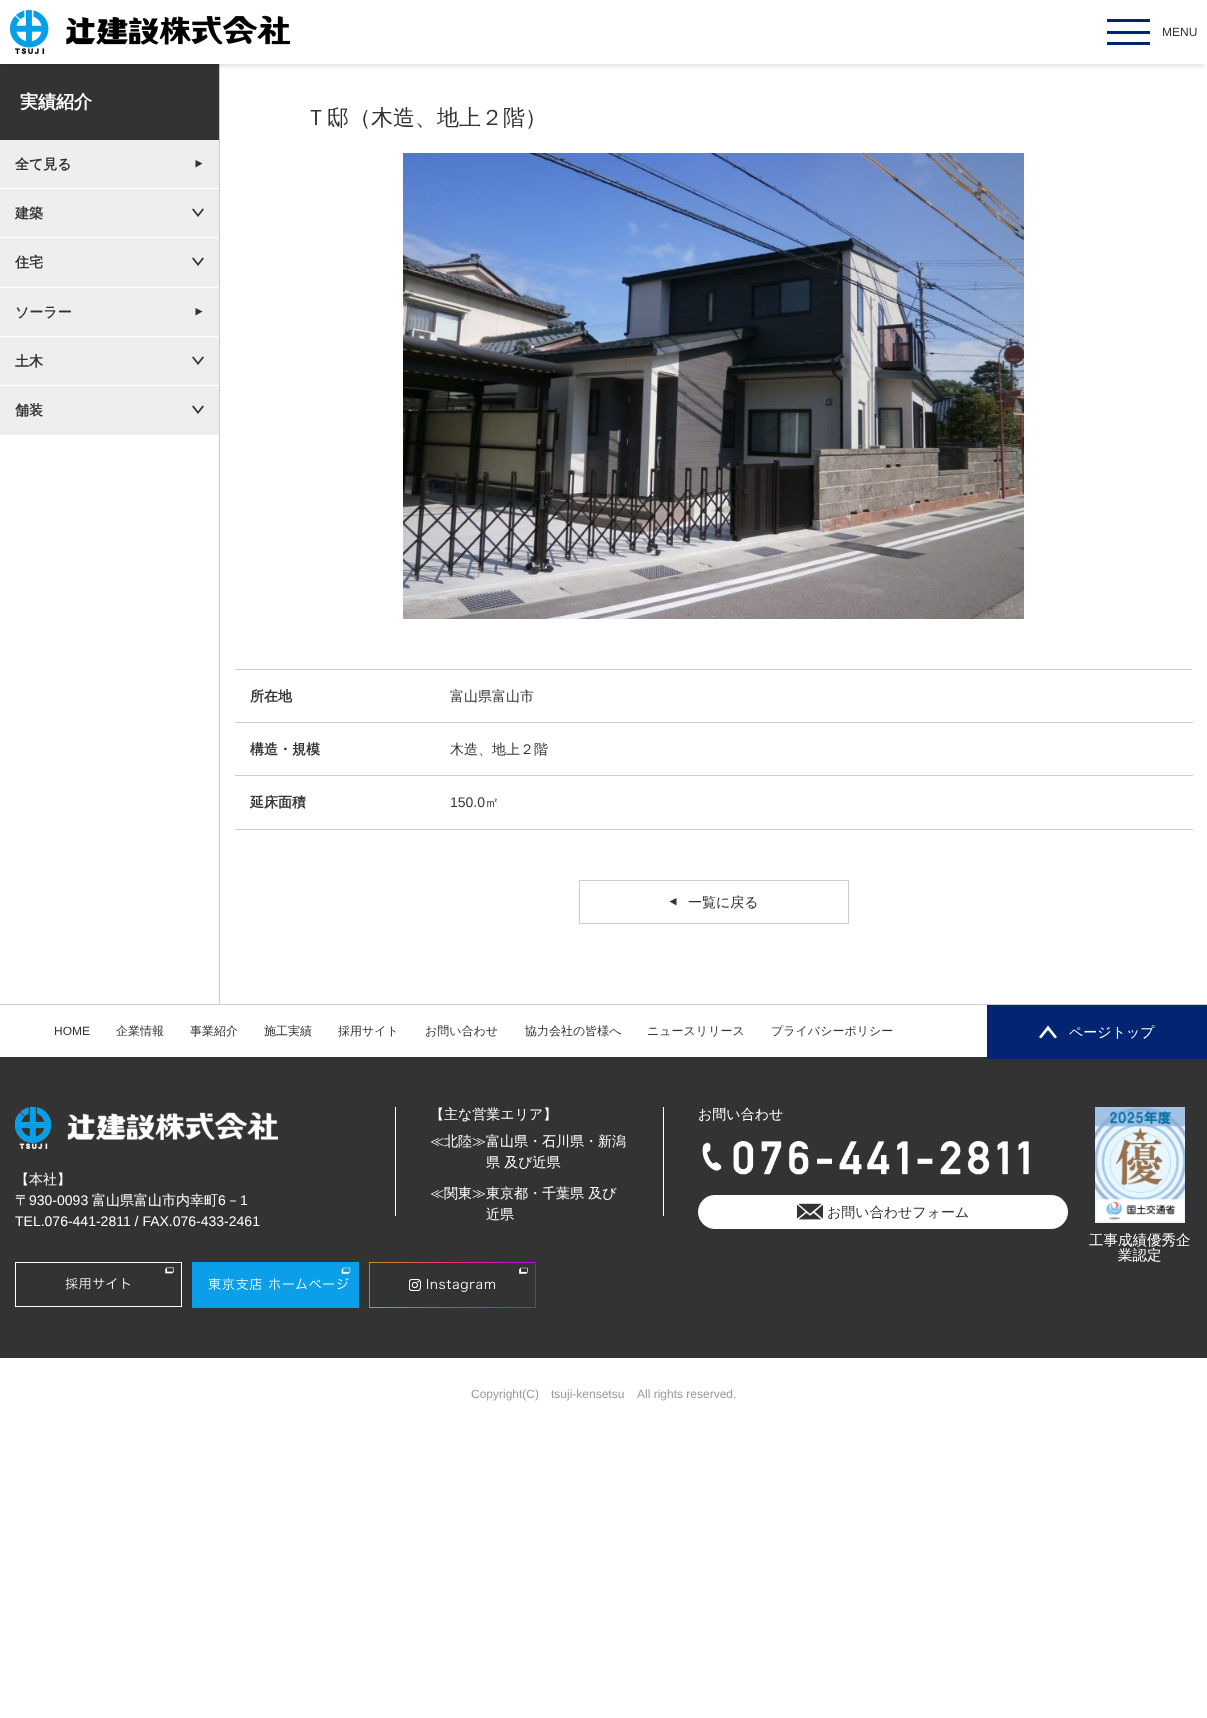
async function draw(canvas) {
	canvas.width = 1207;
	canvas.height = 1718;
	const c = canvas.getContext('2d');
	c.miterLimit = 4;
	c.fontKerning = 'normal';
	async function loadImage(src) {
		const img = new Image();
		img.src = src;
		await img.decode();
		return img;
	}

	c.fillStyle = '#fff';
	c.fillRect(0, 0, 1207, 1718);
	c.fillStyle = '#333';
	c.fillRect(0, 64, 219, 76);
	c.fillStyle = '#ccc';
	c.fillRect(219, 64, 1, 940);
	c.save();
	c.beginPath();
	c.rect(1, 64, 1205, 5);
	c.clip();
	c.fillStyle = '#0000001a';
	c.filter = 'blur(2px)';
	c.beginPath();
	c.rect(3, 9, 1201, 58);
	c.fill();
	c.filter = 'none';
	c.restore();
	c.drawImage(await loadImage('img1.png'), 10, 10, 280, 44);
	for (const [x, y, w, h, color] of [
		[1107, 19, 43, 3, '#012572'],
		[1107, 31, 43, 3, '#012572'],
		[1107, 42, 43, 3, '#012572'],
	]) {
		c.fillStyle = color;
		c.fillRect(x, y, w, h);
	}
	c.font = '12px Liberation Sans';
	c.fillStyle = '#333';
	c.fillText('MENU', 1162, 36);
	c.font = 'bold 18px WenQuanYi Zen Hei';
	c.fillStyle = '#fff';
	c.fillText('実績紹介', 20, 108);
	c.fillStyle = '#eee';
	c.fillRect(0, 140, 219, 48);
	c.font = 'bold 14px WenQuanYi Zen Hei';
	c.fillStyle = '#333';
	c.fillText('全て見る', 15, 169);
	c.beginPath();
	c.moveTo(202.5, 163.5);
	c.lineTo(195.5, 167.5);
	c.lineTo(195.5, 160);
	c.closePath();
	c.fill();
	c.fillStyle = '#eee';
	c.fillRect(0, 386, 219, 49);
	c.fillRect(0, 189, 219, 48);
	c.fillStyle = '#333';
	c.fillText('建築', 15, 218);
	c.drawImage(await loadImage('img2.png'), 192, 208, 12, 9);
	c.fillStyle = '#eee';
	c.fillRect(0, 238, 219, 49);
	c.fillStyle = '#333';
	c.fillText('住宅', 15, 267);
	c.drawImage(await loadImage('img2.png'), 192, 257, 12, 9);
	c.fillStyle = '#eee';
	c.fillRect(0, 288, 219, 48);
	c.fillStyle = '#333';
	c.fillText('ソーラー', 15, 317);
	c.beginPath();
	c.moveTo(202.5, 311.5);
	c.lineTo(195.5, 315.5);
	c.lineTo(195.5, 308);
	c.closePath();
	c.fill();
	c.fillStyle = '#eee';
	c.fillRect(0, 337, 219, 48);
	c.fillStyle = '#333';
	c.fillText('土木', 15, 366);
	c.drawImage(await loadImage('img2.png'), 192, 356, 12, 9);
	c.fillText('舗装', 15, 415);
	c.drawImage(await loadImage('img2.png'), 192, 405, 12, 9);
	c.font = '500 22px WenQuanYi Zen Hei';
	c.fillText('Ｔ邸（木造、地上２階）', 305, 125);
	c.drawImage(await loadImage('img3.png'), 403, 153, 621, 466);
	c.fillStyle = '#ccc';
	c.fillRect(235, 669, 957, 1);
	c.font = 'bold 14px WenQuanYi Zen Hei';
	c.fillStyle = '#333';
	c.fillText('所在地', 250, 701);
	c.fillStyle = '#ccc';
	c.fillRect(235, 722, 958, 1);
	c.font = '500 14px WenQuanYi Zen Hei';
	c.fillStyle = '#333';
	c.fillText('富山県富山市', 450, 701);
	c.font = 'bold 14px WenQuanYi Zen Hei';
	c.fillText('構造・規模', 250, 754);
	c.fillStyle = '#ccc';
	c.fillRect(235, 775, 958, 1);
	c.font = '500 14px WenQuanYi Zen Hei';
	c.fillStyle = '#333';
	c.fillText('木造、地上２階', 450, 754);
	c.font = 'bold 14px WenQuanYi Zen Hei';
	c.fillText('延床面積', 250, 807);
	c.fillStyle = '#ccc';
	c.fillRect(235, 829, 958, 1);
	c.font = '14px Liberation Sans';
	c.fillStyle = '#333';
	c.fillText('150.0', 450, 807);
	c.font = '500 14px WenQuanYi Zen Hei';
	c.fillText('㎡', 485, 807);
	c.strokeStyle = '#ccc';
	c.strokeRect(579.5, 880.5, 269, 43);
	c.beginPath();
	c.moveTo(669.5, 901.5);
	c.lineTo(676.5, 898);
	c.lineTo(676.5, 905.5);
	c.closePath();
	c.fill();
	c.fillText('一覧に戻る', 688, 907);
	c.fillStyle = '#ccc';
	c.fillRect(0, 1004, 1207, 1);
	c.font = '12px Liberation Sans';
	c.fillStyle = '#333';
	c.fillText('HOME', 54, 1035);
	c.font = '500 12px WenQuanYi Zen Hei';
	for (const [text, x, y] of [
		['企業情報', 116, 1035],
		['事業紹介', 190, 1035],
		['施工実績', 264, 1035],
		['採用サイト', 338, 1035],
		['お問い合わせ', 425, 1035],
		['協力会社の皆様へ', 525, 1035],
		['ニュースリリース', 647, 1035],
		['プライバシーポリシー', 771, 1035],
	]) {
		c.fillText(text, x, y);
	}
	c.fillRect(0, 1057, 1207, 301);
	c.fillStyle = '#012572';
	c.fillRect(987, 1005, 220, 54);
	c.fillStyle = '#fff';
	c.beginPath();
	c.moveTo(1048, 1025.5);
	c.lineTo(1039, 1037);
	c.lineTo(1041, 1038.5);
	c.lineTo(1048, 1030);
	c.lineTo(1055, 1038.5);
	c.lineTo(1057, 1037);
	c.closePath();
	c.fill();
	c.font = '500 14px WenQuanYi Zen Hei';
	c.fillText('ページトップ', 1069, 1037);
	c.drawImage(await loadImage('img4.png'), 15, 1107, 263, 42);
	c.fillText('【本社】', 15, 1184);
	c.fillText('〒', 15, 1205);
	c.font = '14px Liberation Sans';
	c.fillText('930-0093', 29, 1205);
	c.font = '500 14px WenQuanYi Zen Hei';
	c.fillText('富山県富山市内幸町', 92, 1205);
	c.font = '14px Liberation Sans';
	c.fillText('6', 218, 1205);
	c.font = '500 14px WenQuanYi Zen Hei';
	c.fillText('－', 226, 1205);
	c.font = '14px Liberation Sans';
	c.fillText('1', 240, 1205);
	c.fillText('TEL.076-441-2811 / FAX.076-433-2461', 15, 1226);
	c.fillRect(395, 1107, 1, 109);
	c.font = '500 14px WenQuanYi Zen Hei';
	for (const [text, x, y] of [
		['【主な営業エリア】', 430, 1119],
		['≪北陸≫富山県・石川県・新潟', 430, 1146],
		['県 及び近県', 486, 1167],
		['≪関東≫', 430, 1198],
		['東京都・千葉県 及び', 486, 1198],
		['近県', 486, 1219],
	]) {
		c.fillText(text, x, y);
	}
	c.fillRect(663, 1107, 1, 109);
	c.fillText('お問い合わせ', 698, 1119);
	c.drawImage(await loadImage('img5.png'), 702, 1142, 20, 29);
	c.drawImage(await loadImage('img6.png'), 733, 1141, 296, 34);
	c.beginPath();
	c.roundRect(698, 1195, 370, 34, 17);
	c.fill();
	c.drawImage(await loadImage('img7.png'), 797, 1203, 26, 17);
	c.fillStyle = '#333';
	c.fillText('お問い合わせフォーム', 827, 1217);
	c.drawImage(await loadImage('img8.png'), 1095, 1107, 90, 116);
	c.font = '500 14.5px WenQuanYi Zen Hei';
	c.fillStyle = '#fff';
	c.fillText('工事成績優秀企', 1089, 1245);
	c.fillText('業認定', 1118, 1260);
	c.drawImage(await loadImage('img9.png'), 15, 1262, 167, 45);
	c.drawImage(await loadImage('img10.png'), 192, 1262, 167, 46);
	c.drawImage(await loadImage('img11.png'), 369, 1262, 167, 46);
	c.font = '12px Liberation Sans';
	c.fillStyle = '#9a9a9a';
	for (const [text, x, y] of [
		['Copyright(C)', 471, 1398],
		['tsuji-kensetsu', 551, 1398],
		['All rights reserved.', 637, 1398],
	]) {
		c.fillText(text, x, y);
	}
}

draw(document.querySelector('canvas'));
